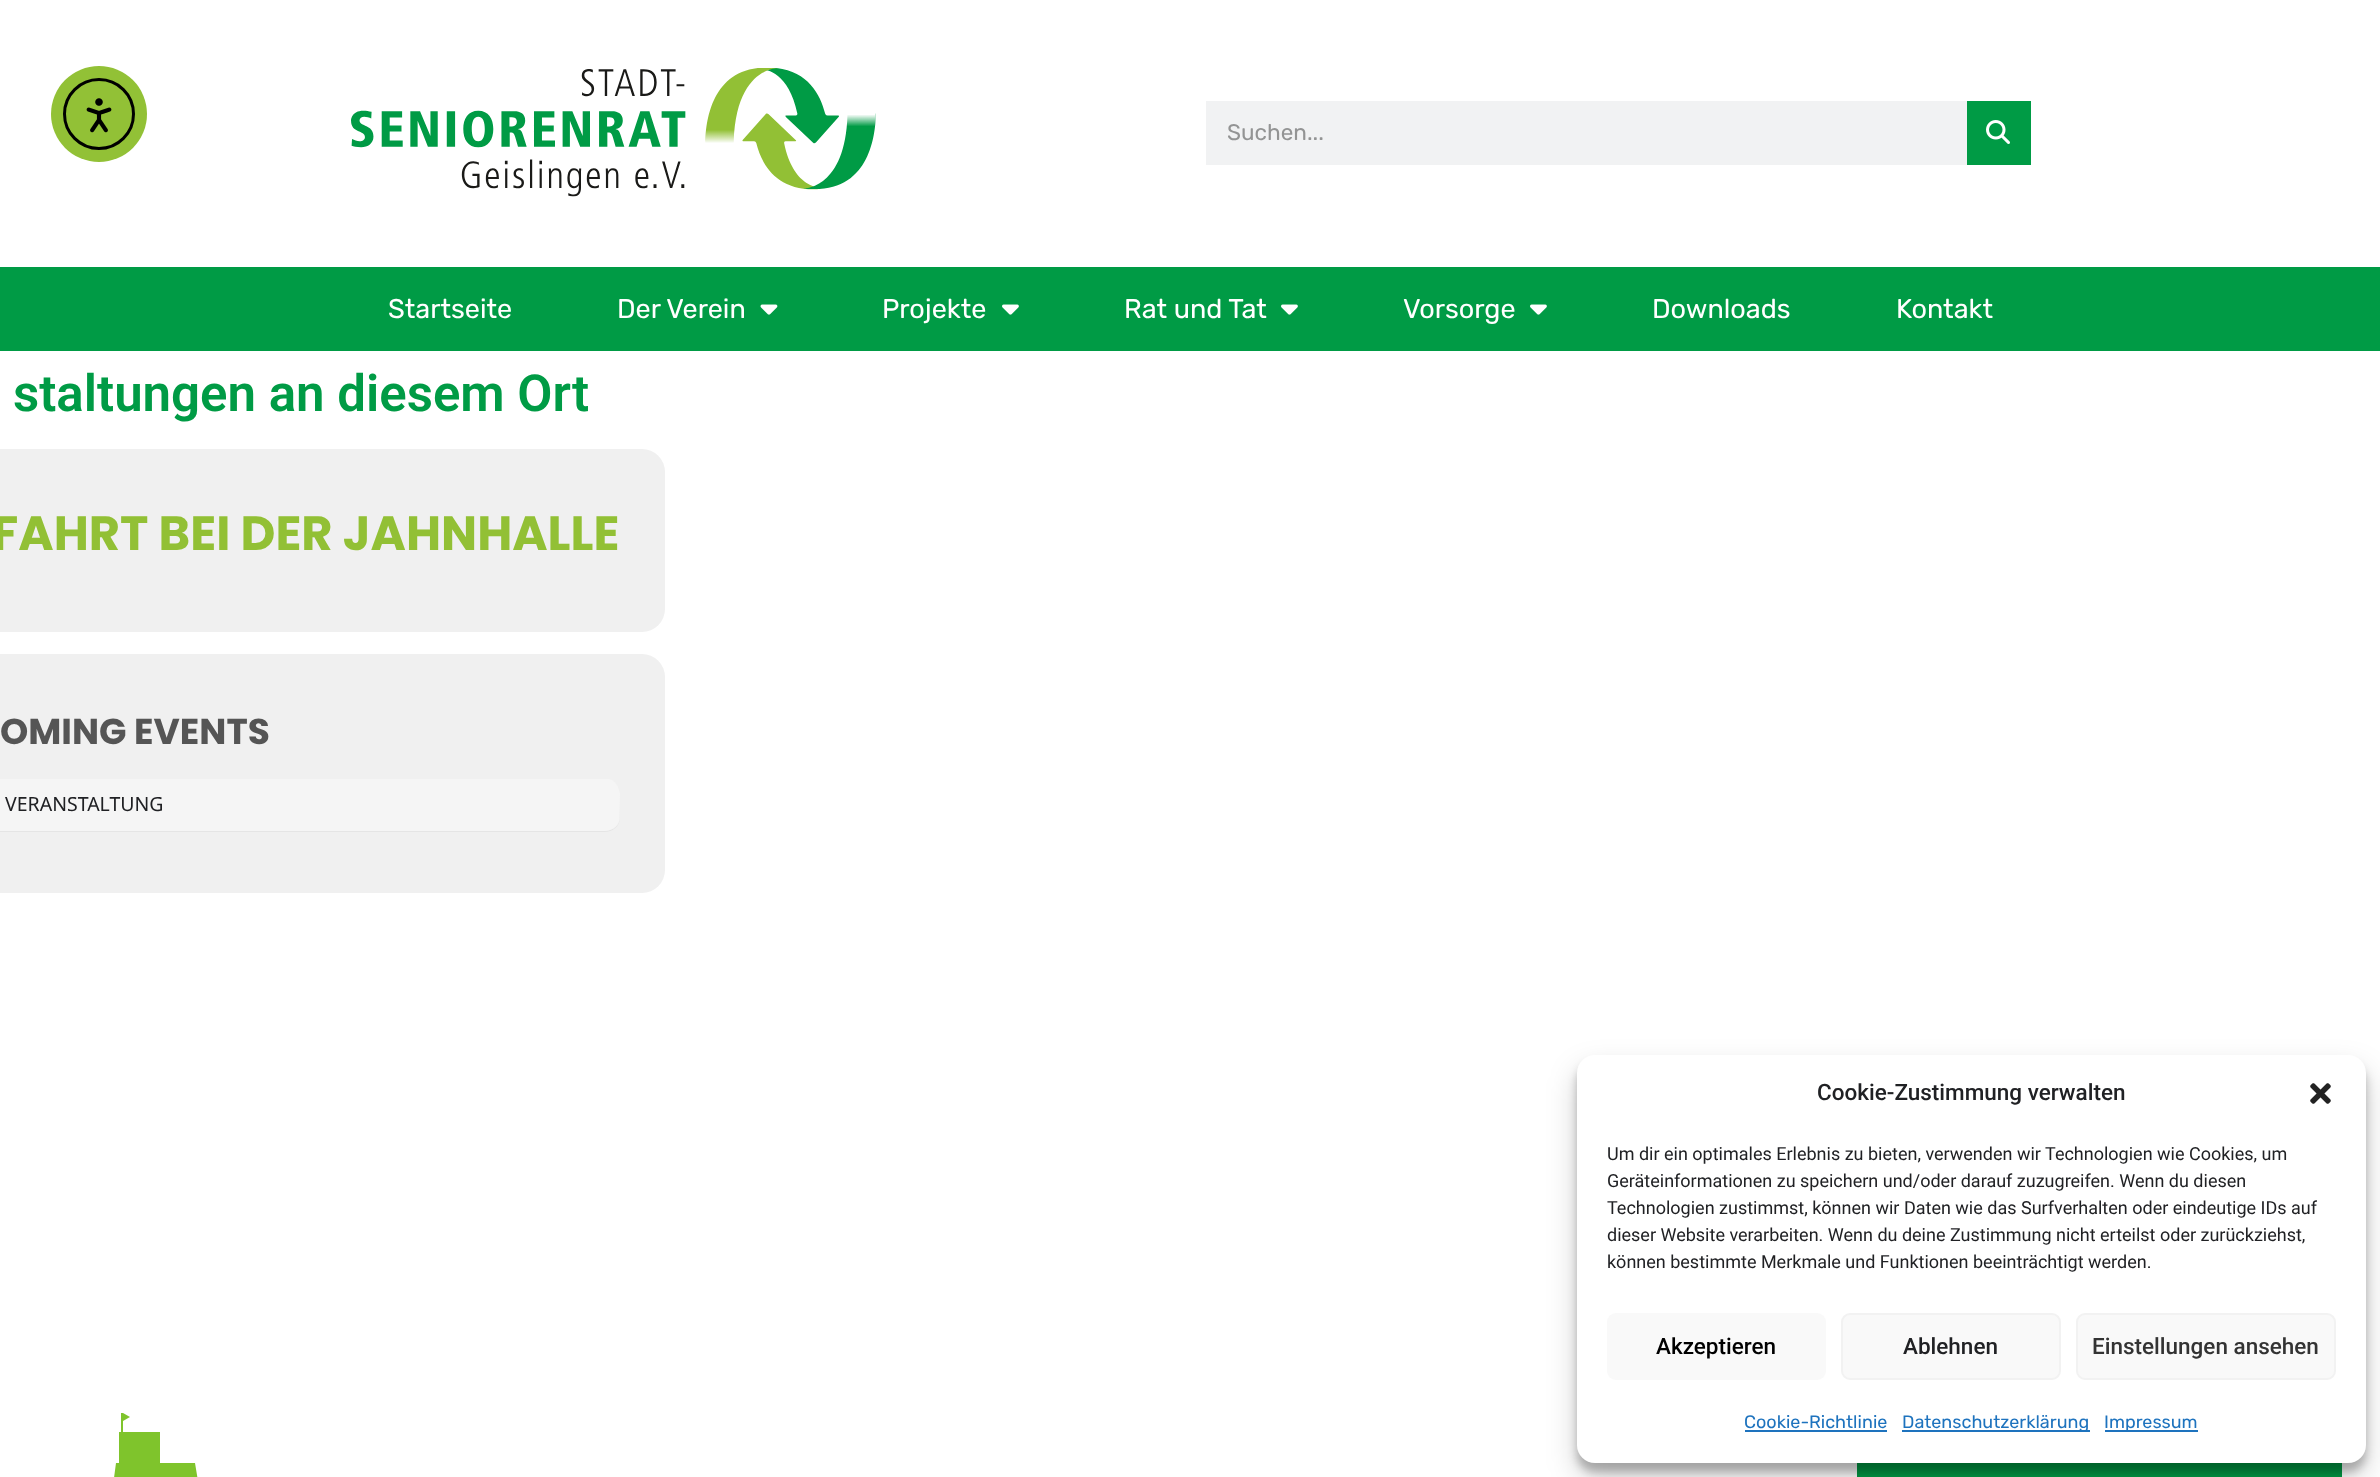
async function draw(canvas) {
	canvas.width = 2380;
	canvas.height = 1477;
	const c = canvas.getContext('2d');
	c.miterLimit = 4;
	c.fontKerning = 'normal';
	async function loadImage(src) {
		const img = new Image();
		img.src = src;
		await img.decode();
		return img;
	}

	c.fillStyle = '#fff';
	c.fillRect(0, 0, 2380, 1477);
	c.fillStyle = '#92c136';
	c.beginPath();
	c.arc(99, 114, 48, 0, 2 * Math.PI);
	c.fill();
	c.beginPath();
	c.arc(99, 114, 34.5, 0, 2 * Math.PI);
	c.strokeStyle = '#000';
	c.lineWidth = 3;
	c.stroke();
	c.drawImage(await loadImage('img1.png'), 86, 98, 26, 35);
	c.drawImage(await loadImage('img2.png'), 351, 68, 525, 129);
	c.fillStyle = '#f1f2f3';
	c.fillRect(1206, 101, 761, 64);
	c.font = '22.5px Rubik';
	c.fillStyle = '#939494';
	c.fillText('Suchen...', 1227, 140);
	c.fillStyle = '#009b45';
	c.fillRect(1967, 101, 64, 64);
	c.drawImage(await loadImage('img3.png'), 1986, 120, 24, 24);
	c.fillRect(0, 267, 2380, 84);
	c.font = '27px Rubik';
	c.fillStyle = '#fff';
	c.fillText('Startseite', 388, 318);
	c.fillText('Der Verein', 617, 318);
	c.drawImage(await loadImage('img4.png'), 760, 304, 18, 11);
	c.fillText('Projekte', 882, 318);
	c.drawImage(await loadImage('img5.png'), 1002, 304, 17, 11);
	c.fillText('Rat und Tat', 1124, 318);
	c.drawImage(await loadImage('img5.png'), 1281, 304, 17, 11);
	c.fillText('Vorsorge', 1403, 318);
	c.drawImage(await loadImage('img5.png'), 1530, 304, 17, 11);
	c.fillText('Downloads', 1652, 318);
	c.fillText('Kontakt', 1896, 318);
	c.font = '600 51px Roboto';
	c.fillStyle = '#009b45';
	c.fillText('staltungen an diesem Ort', 13, 411);
	c.fillStyle = '#f0f0f0';
	c.beginPath();
	c.roundRect(-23, 449, 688, 183, 23);
	c.fill();
	c.font = 'bold 48px Poppins';
	c.fillStyle = '#92c035';
	c.fillText('FAHRT BEI DER JAHNHALLE', -8, 550);
	c.fillStyle = '#f0f0f0';
	c.beginPath();
	c.roundRect(-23, 654, 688, 239, 23);
	c.fill();
	c.font = 'bold 36px Poppins';
	c.fillStyle = '#555';
	c.fillText('OMING EVENTS', 0, 744);
	c.fillStyle = '#e5e5e5';
	c.beginPath();
	c.moveTo(604, 832);
	c.bezierCurveTo(613, 832, 620, 826, 620, 818);
	c.bezierCurveTo(620, 825, 613, 831, 604, 831);
	c.lineTo(-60, 831);
	c.bezierCurveTo(-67, 831, -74, 825, -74, 818);
	c.lineTo(-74, 794);
	c.bezierCurveTo(-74, 787, -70, 782, -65, 779);
	c.lineTo(-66, 779);
	c.bezierCurveTo(-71, 782, -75, 787, -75, 794);
	c.lineTo(-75, 818);
	c.bezierCurveTo(-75, 826, -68, 832, -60, 832);
	c.closePath();
	c.fill();
	c.fillStyle = '#f5f5f5';
	c.beginPath();
	c.moveTo(-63, 779);
	c.lineTo(608, 779);
	c.bezierCurveTo(615, 779, 619, 788, 620, 794);
	c.lineTo(619, 820);
	c.bezierCurveTo(618, 827, 611, 831, 604, 831);
	c.lineTo(-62, 831);
	c.bezierCurveTo(-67, 830, -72, 826, -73, 821);
	c.lineTo(-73, 789);
	c.bezierCurveTo(-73, 785, -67, 779, -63, 779);
	c.closePath();
	c.fill();
	c.font = '19.5px Noto Sans';
	c.fillStyle = '#202124';
	c.fillText('VERANSTALTUNG', 5, 811);
	c.fillStyle = '#009b45';
	c.fillRect(1857, 1463, 485, 14);
	c.fillStyle = '#0000003b';
	c.filter = 'blur(4.5px)';
	c.beginPath();
	c.roundRect(1577, 1064, 789, 408, 18);
	c.fill();
	c.filter = 'none';
	c.fillStyle = '#00000030';
	c.filter = 'blur(15px)';
	c.beginPath();
	c.roundRect(1577, 1070, 789, 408, 18);
	c.fill();
	c.filter = 'none';
	c.fillStyle = '#fff';
	c.beginPath();
	c.roundRect(1577, 1055, 789, 408, 18);
	c.fill();
	c.font = '500 22.5px Roboto';
	c.fillStyle = '#202124';
	c.fillText('Cookie-Zustimmung verwalten', 1817, 1100);
	c.drawImage(await loadImage('img6.png'), 2310, 1083, 21, 21);
	c.font = '18px Roboto';
	for (const [text, x, y] of [
		['Um dir ein optimales Erlebnis zu bieten, verwenden wir Technologien wie Cookies, um', 1607, 1160],
		['Geräteinformationen zu speichern und/oder darauf zuzugreifen. Wenn du diesen', 1607, 1187],
		['Technologien zustimmst, können wir Daten wie das Surfverhalten oder eindeutige IDs auf', 1607, 1214],
		['dieser Website verarbeiten. Wenn du deine Zustimmung nicht erteilst oder zurückziehst,', 1607, 1241],
		['können bestimmte Merkmale und Funktionen beeinträchtigt werden.', 1607, 1268],
	]) {
		c.fillText(text, x, y);
	}
	c.fillStyle = '#f9f9f9';
	c.beginPath();
	c.roundRect(1607, 1313, 219, 67, 9);
	c.fill();
	c.font = '500 22.5px Roboto';
	c.fillStyle = '#000';
	c.fillText('Akzeptieren', 1656, 1354);
	c.fillStyle = '#f9f9f9';
	c.beginPath();
	c.roundRect(1842, 1314, 218, 65, 8);
	c.fill();
	c.strokeStyle = '#f2f2f2';
	c.lineWidth = 2;
	c.stroke();
	c.fillStyle = '#202124';
	c.fillText('Ablehnen', 1903, 1354);
	c.fillStyle = '#f9f9f9';
	c.beginPath();
	c.roundRect(2077, 1314, 258, 65, 8);
	c.fill();
	c.stroke();
	c.fillStyle = '#333';
	c.fillText('Einstellungen ansehen', 2092, 1354);
	c.font = '18px Rubik';
	c.fillStyle = '#1e73be';
	c.fillText('Cookie-Richtlinie', 1744, 1428);
	c.fillRect(1745, 1430, 142, 2);
	c.fillRect(1902, 1430, 188, 2);
	c.fillText('Datenschutzerklärung', 1902, 1428);
	c.fillRect(2105, 1430, 93, 2);
	c.fillText('Impressum', 2104, 1428);
	c.fillStyle = '#7fc42c';
	c.beginPath();
	c.moveTo(195, 1463);
	c.lineTo(160, 1463);
	c.lineTo(160, 1432);
	c.lineTo(123, 1432);
	c.lineTo(123, 1421);
	c.lineTo(130, 1417);
	c.lineTo(123, 1413);
	c.lineTo(121, 1413);
	c.lineTo(121, 1432);
	c.lineTo(119, 1432);
	c.lineTo(119, 1463);
	c.lineTo(116, 1463);
	c.lineTo(112, 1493);
	c.lineTo(200, 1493);
	c.closePath();
	c.fill();
}

draw(document.querySelector('canvas'));
